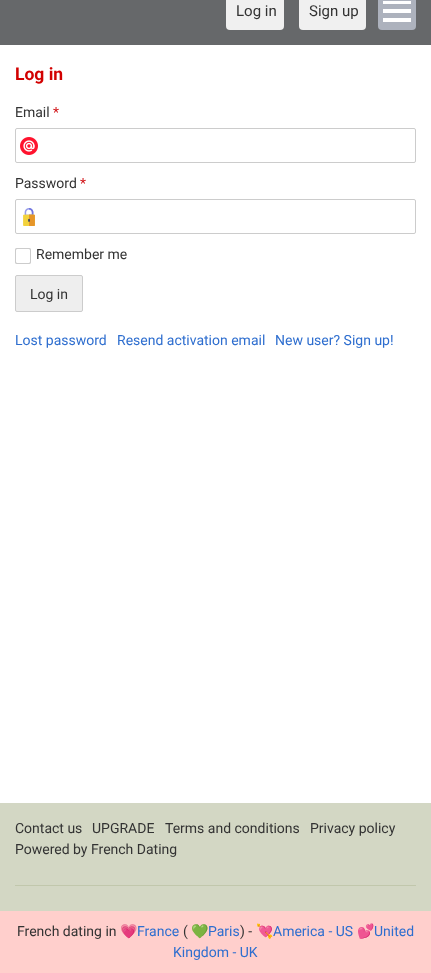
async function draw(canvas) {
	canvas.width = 431;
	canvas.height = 973;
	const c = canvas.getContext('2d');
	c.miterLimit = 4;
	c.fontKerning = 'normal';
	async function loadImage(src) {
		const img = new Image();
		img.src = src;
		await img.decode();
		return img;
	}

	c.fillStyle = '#fff';
	c.fillRect(0, 0, 431, 973);
	c.fillStyle = '#66686a';
	c.fillRect(0, 0, 431, 45);
	c.fillStyle = '#f0f0f0';
	c.beginPath();
	c.roundRect(226, -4, 58, 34, 4);
	c.fill();
	c.font = '15px Roboto';
	c.fillStyle = '#333';
	c.fillText('Log in', 236, 16);
	c.fillStyle = '#f0f0f0';
	c.beginPath();
	c.roundRect(299, -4, 67, 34, 4);
	c.fill();
	c.fillStyle = '#333';
	c.fillText('Sign up', 309, 16);
	c.fillStyle = '#adb2bd';
	c.beginPath();
	c.roundRect(378, -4, 38, 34, 4);
	c.fill();
	for (const [x, y, w, h, color] of [
		[383, 9, 28, 4, '#fff'],
		[383, 1, 28, 3, '#fff'],
		[383, 18, 28, 4, '#fff'],
	]) {
		c.fillStyle = color;
		c.fillRect(x, y, w, h);
	}
	c.font = 'bold 17.5px Roboto';
	c.fillStyle = '#d20000';
	c.fillText('Log in', 15, 80);
	c.font = '14px Roboto';
	c.fillStyle = '#333';
	c.fillText('Email', 15, 117);
	c.fillStyle = '#d00e12';
	c.fillText('*', 53, 117);
	c.drawImage(await loadImage('img1.png'), 20, 137, 18, 18);
	c.beginPath();
	c.roundRect(15.5, 128.5, 400, 34, 1.5);
	c.strokeStyle = '#ccc';
	c.stroke();
	c.fillStyle = '#333';
	c.fillText('Password', 15, 188);
	c.fillStyle = '#d00e12';
	c.fillText('*', 80, 188);
	c.drawImage(await loadImage('img2.png'), 23, 208, 12, 18);
	c.beginPath();
	c.roundRect(15.5, 199.5, 400, 34, 1.5);
	c.stroke();
	c.drawImage(await loadImage('img3.png'), 15, 248, 16, 16);
	c.fillStyle = '#333';
	c.fillText('Remember me', 36, 259);
	c.fillStyle = '#eee';
	c.beginPath();
	c.roundRect(15.5, 275.5, 67, 36, 1.5);
	c.fill();
	c.stroke();
	c.fillStyle = '#333';
	c.fillText('Log in', 30, 299);
	c.fillStyle = '#2e6ecf';
	for (const [text, x, y] of [
		['Lost password', 15, 345],
		['Resend activation email', 117, 345],
		['New user? Sign up!', 275, 345],
	]) {
		c.fillText(text, x, y);
	}
	c.fillStyle = '#d3d7c4';
	c.fillRect(0, 803, 431, 108);
	c.fillStyle = '#333';
	for (const [text, x, y] of [
		['Contact us', 15, 833],
		['UPGRADE', 92, 833],
		['Terms and conditions', 165, 833],
		['Privacy policy', 310, 833],
		['Powered by French Dating', 15, 854],
	]) {
		c.fillText(text, x, y);
	}
	c.fillStyle = '#c1c7ac';
	c.fillRect(15, 885, 401, 1);
	c.fillStyle = '#ffcfcc';
	c.fillRect(0, 911, 431, 62);
	c.fillStyle = '#333';
	c.fillText('French dating in', 17, 936);
	c.font = '14px Noto Color Emoji';
	c.fillText('💗', 120, 936);
	c.font = '14px Roboto';
	c.fillStyle = '#2e6ecf';
	c.fillText('France', 137, 936);
	c.fillStyle = '#333';
	c.fillText('(', 183, 936);
	c.font = '14px Noto Color Emoji';
	c.fillText('💚', 191, 936);
	c.font = '14px Roboto';
	c.fillStyle = '#2e6ecf';
	c.fillText('Paris', 208, 936);
	c.fillStyle = '#333';
	c.fillText(') -', 240, 936);
	c.font = '14px Noto Color Emoji';
	c.fillText('💘', 256, 936);
	c.font = '14px Roboto';
	c.fillStyle = '#2e6ecf';
	c.fillText('America - US', 273, 936);
	c.font = '14px Noto Color Emoji';
	c.fillStyle = '#333';
	c.fillText('💕', 357, 936);
	c.font = '14px Roboto';
	c.fillStyle = '#2e6ecf';
	c.fillText('United', 374, 936);
	c.fillText('Kingdom - UK', 173, 957);
}

draw(document.querySelector('canvas'));
